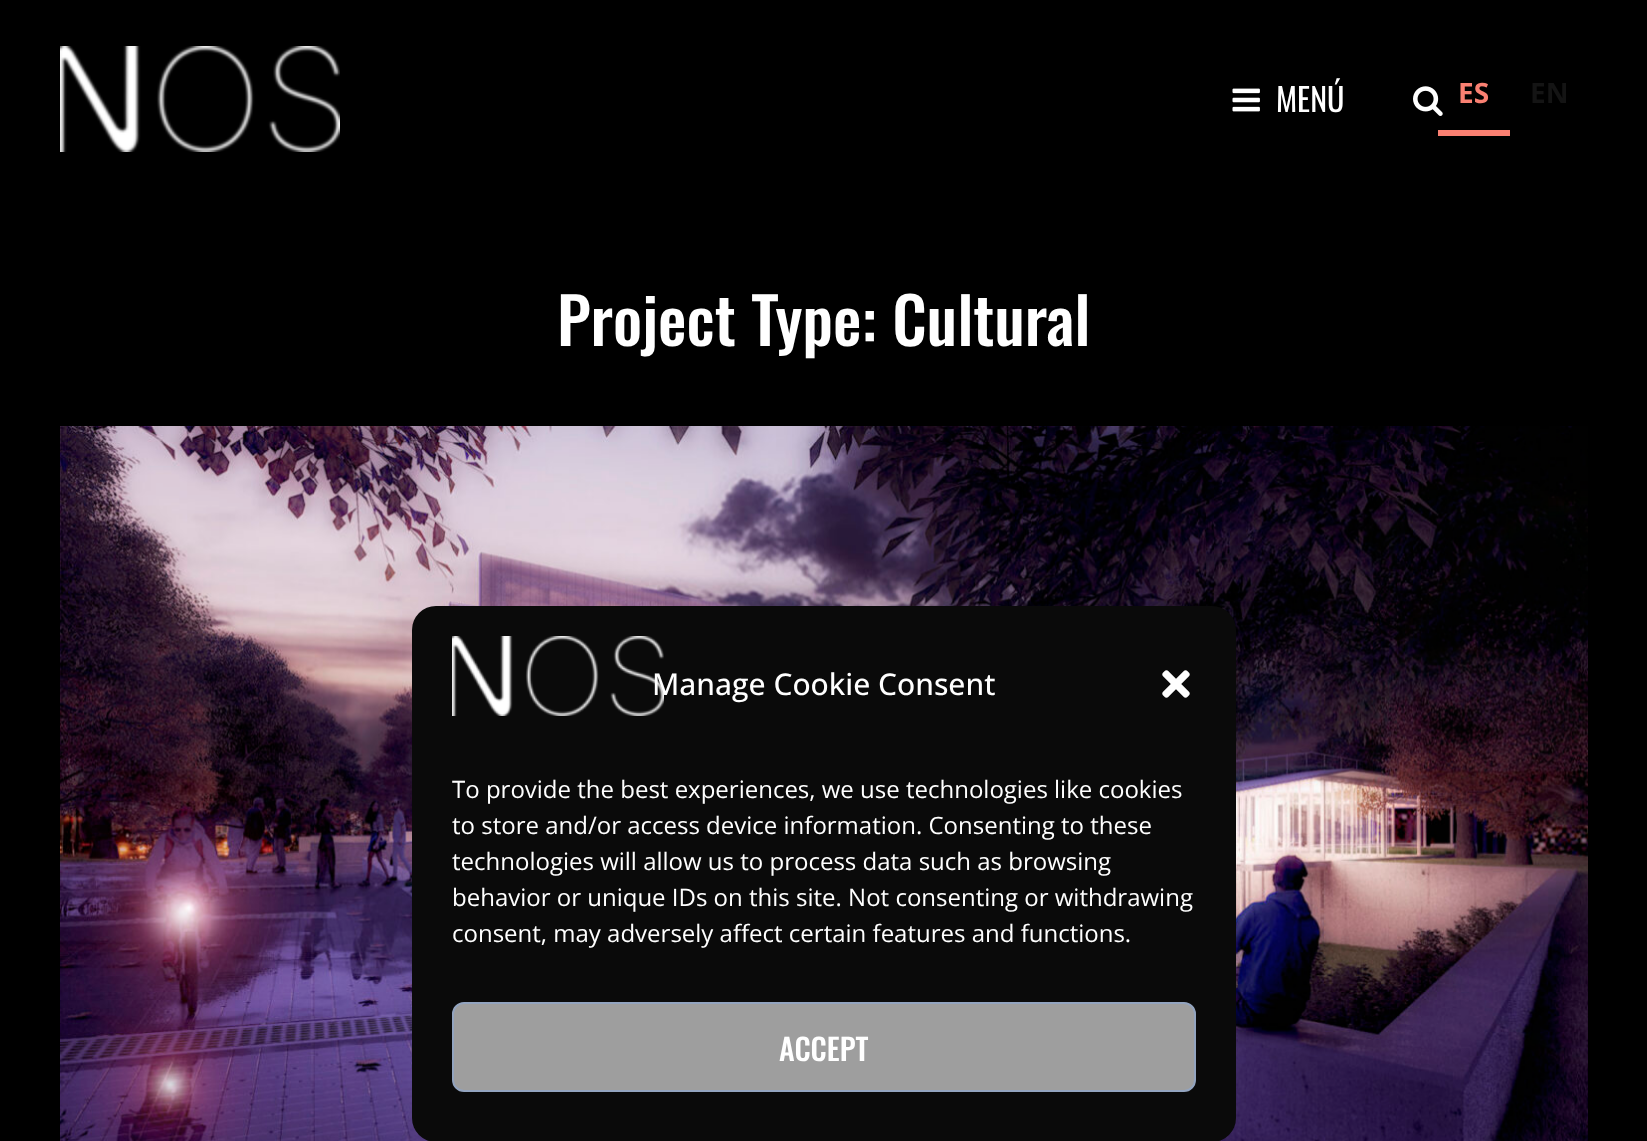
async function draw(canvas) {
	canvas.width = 1647;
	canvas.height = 1141;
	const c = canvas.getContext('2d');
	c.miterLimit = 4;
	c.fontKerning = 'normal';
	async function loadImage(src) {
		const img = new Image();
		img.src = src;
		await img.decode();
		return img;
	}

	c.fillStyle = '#000';
	c.fillRect(0, 0, 1647, 1141);
	c.drawImage(await loadImage('img1.png'), 60, 46, 280, 106);
	c.drawImage(await loadImage('img2.png'), 1232, 88, 28, 24);
	c.font = '32px Oswald';
	c.fillStyle = '#fff';
	c.fillText('MENÚ', 1276, 112);
	c.drawImage(await loadImage('img3.png'), 1413, 86, 30, 30);
	c.font = 'bold 28px Noto Sans';
	c.fillStyle = '#fa8072';
	c.fillText('ES', 1458, 103);
	c.fillRect(1438, 130, 72, 6);
	c.fillStyle = '#141414';
	c.fillText('EN', 1530, 103);
	c.font = '500 64px Oswald';
	c.fillStyle = '#fff';
	c.fillText('Project Type: Cultural', 557, 346);
	c.drawImage(await loadImage('img4.png'), 60, 426, 1528, 715);
	c.fillStyle = '#0a0a0a';
	c.beginPath();
	c.roundRect(412, 606, 824, 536, 24);
	c.fill();
	c.drawImage(await loadImage('img5.png'), 452, 636, 212, 80);
	c.font = '500 30px Open Sans';
	c.fillStyle = '#fff';
	c.fillText('Manage Cookie Consent', 652, 695);
	c.drawImage(await loadImage('img6.png'), 1162, 670, 28, 28);
	c.font = '24px Open Sans';
	for (const [text, x, y] of [
		['To provide the best experiences, we use technologies like cookies', 452, 798],
		['to store and/or access device information. Consenting to these', 452, 834],
		['technologies will allow us to process data such as browsing', 452, 870],
		['behavior or unique IDs on this site. Not consenting or withdrawing', 452, 906],
		['consent, may adversely affect certain features and functions.', 452, 942],
	]) {
		c.fillText(text, x, y);
	}
	c.fillStyle = '#9e9e9e';
	c.beginPath();
	c.roundRect(453, 1003, 742, 88, 11);
	c.fill();
	c.strokeStyle = '#93a4bf';
	c.lineWidth = 2;
	c.stroke();
	c.font = '500 30px Oswald';
	c.fillStyle = '#fff';
	c.fillText('ACCEPT', 779, 1061);
}

draw(document.querySelector('canvas'));
